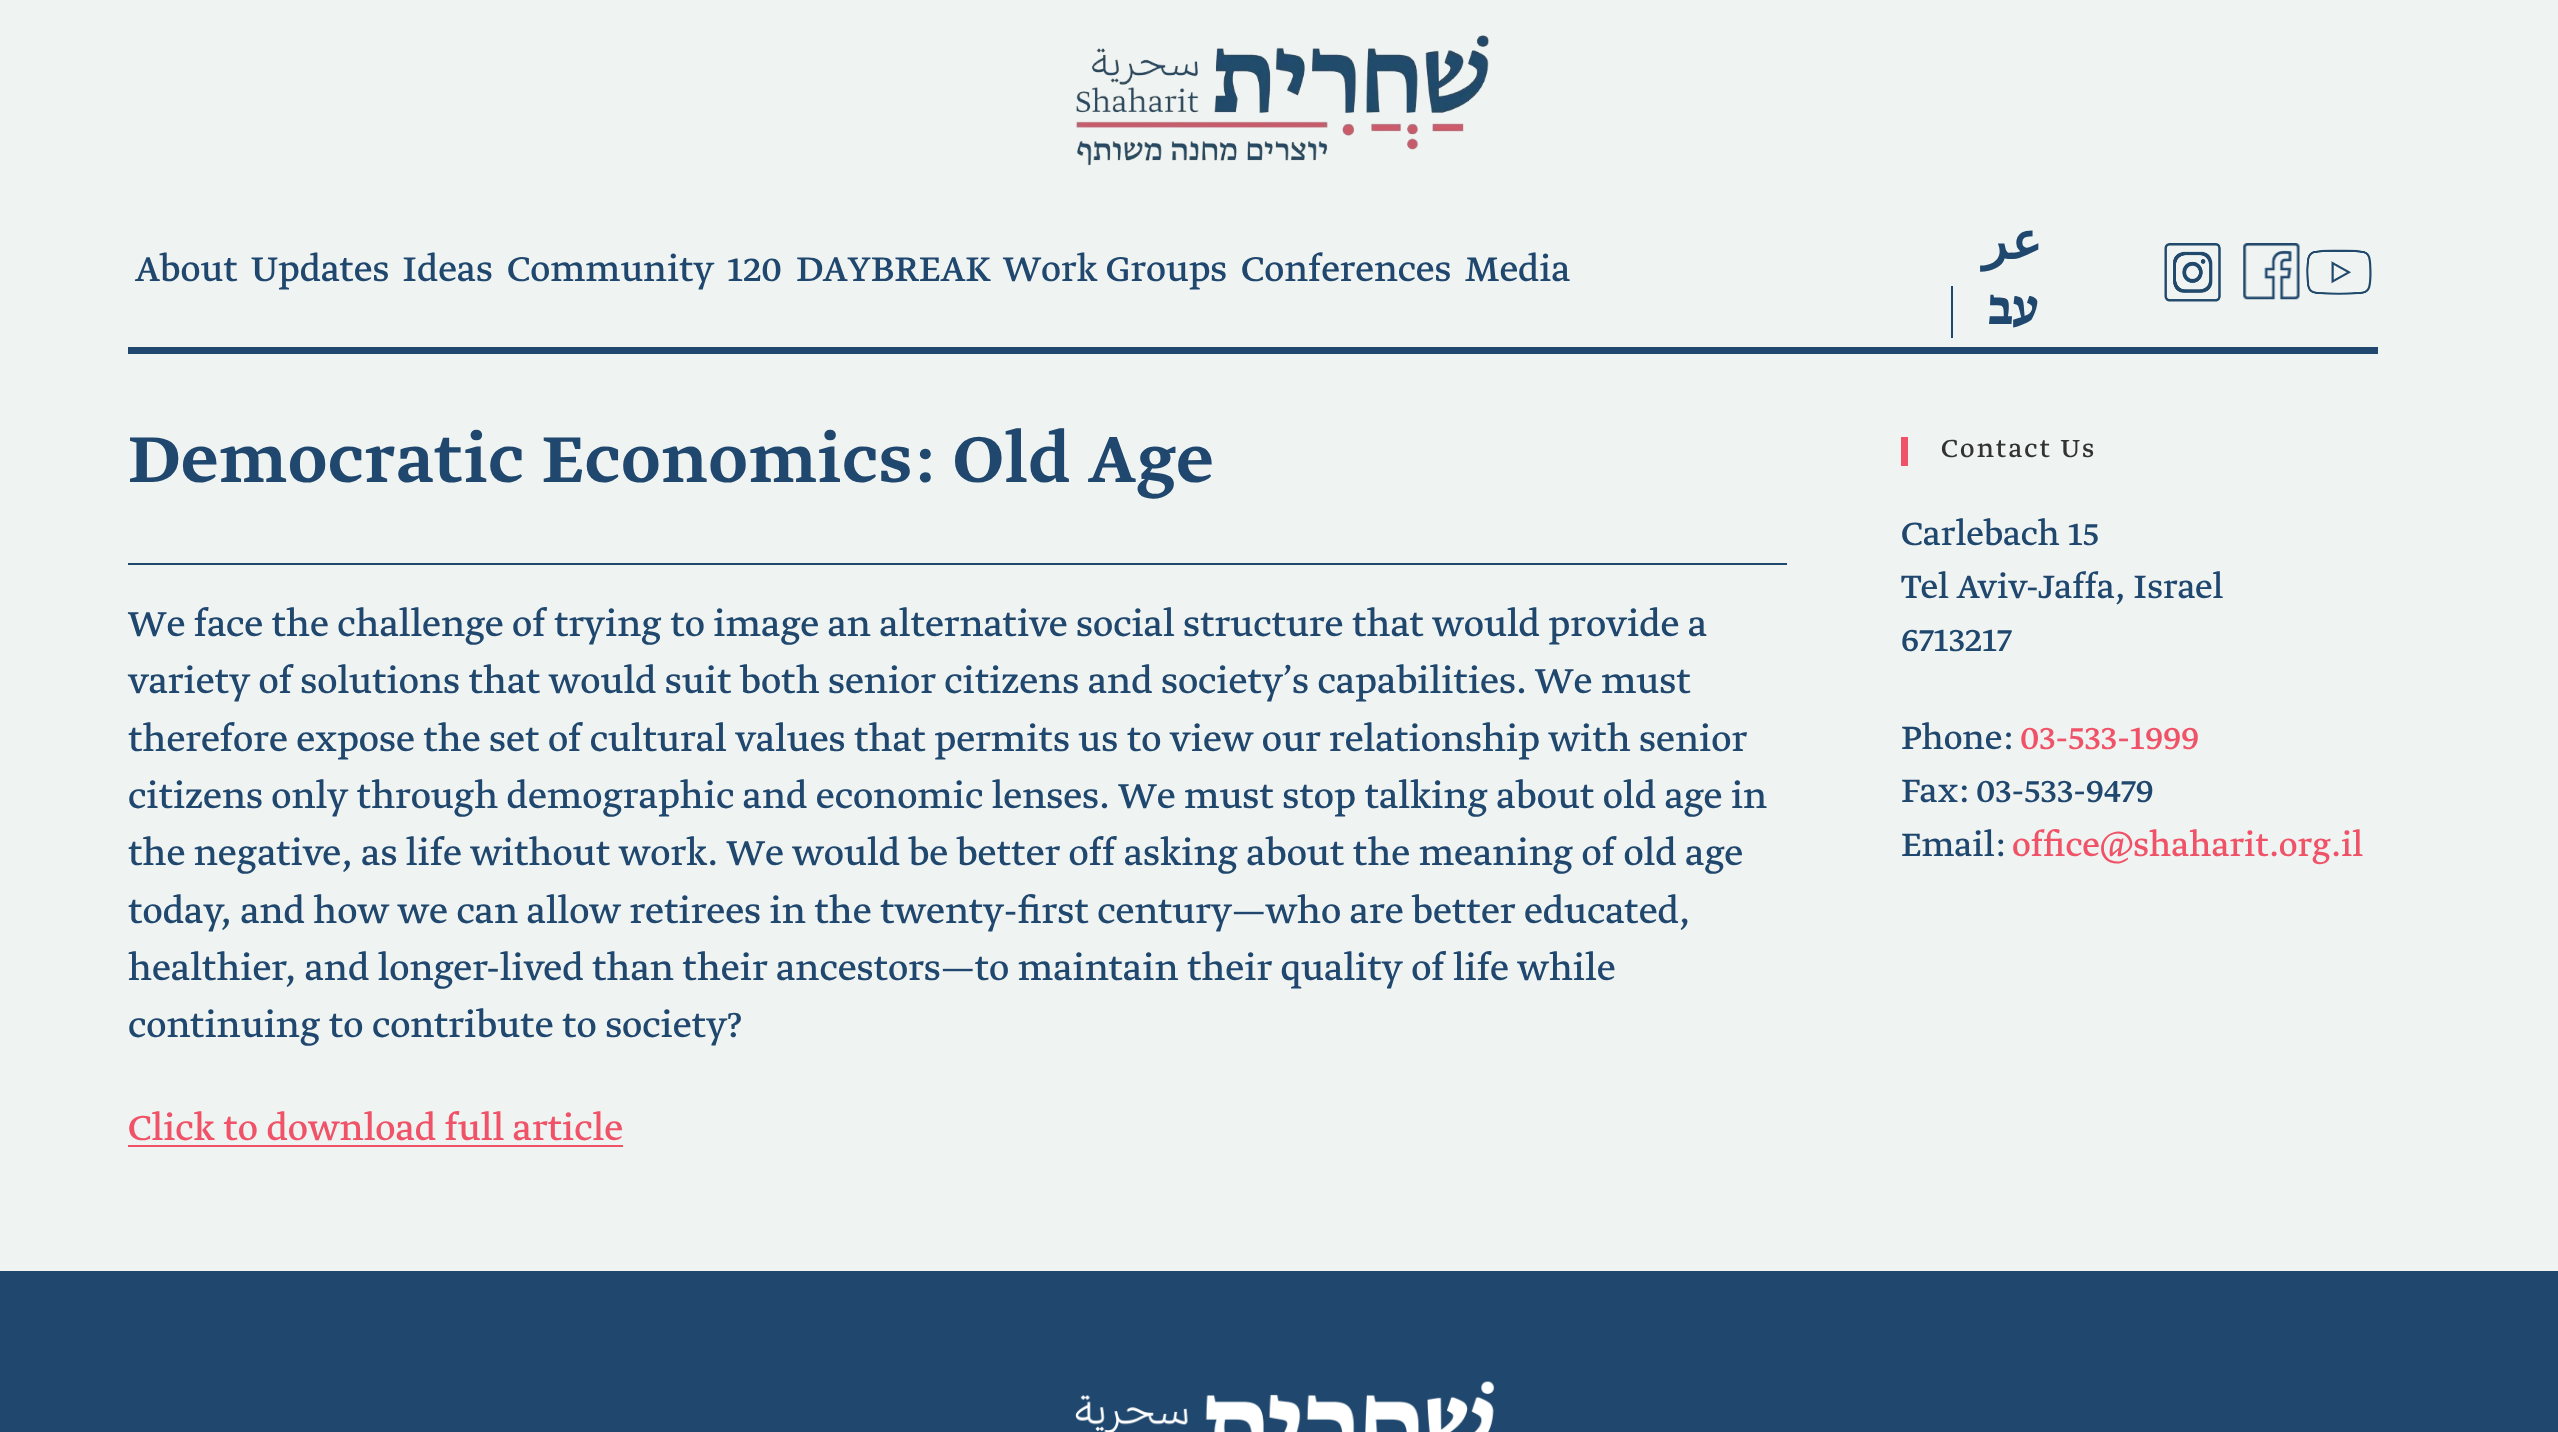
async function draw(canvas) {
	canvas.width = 2558;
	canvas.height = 1432;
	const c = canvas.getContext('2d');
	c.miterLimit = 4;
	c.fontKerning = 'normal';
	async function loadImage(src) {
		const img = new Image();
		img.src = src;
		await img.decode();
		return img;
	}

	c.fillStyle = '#eff3f2';
	c.fillRect(0, 0, 2558, 1432);
	c.drawImage(await loadImage('img1.png'), 1076, 35, 413, 131);
	c.fillStyle = '#20476e';
	c.fillRect(128, 347, 2250, 7);
	c.font = '40.5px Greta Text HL';
	for (const [text, x, y] of [
		['About', 135, 281],
		['Updates', 251, 281],
		['Ideas', 402, 281],
		['Community', 507, 281],
		['120', 727, 281],
		['DAYBREAK', 796, 281],
		['Work Groups', 1003, 281],
		['Conferences', 1241, 281],
		['Media', 1465, 281],
	]) {
		c.fillText(text, x, y);
	}
	c.direction = 'rtl';
	c.font = 'bold 52px DejaVu Sans';
	c.fillText('عر', 2042, 259);
	c.fillStyle = '#1d476d';
	c.fillRect(1951, 286, 2, 52);
	c.font = 'bold 52px Greta Text HL';
	c.fillStyle = '#20476e';
	c.fillText('עב', 2039, 324);
	c.drawImage(await loadImage('img2.png'), 2164, 243, 57, 59);
	c.drawImage(await loadImage('img3.png'), 2243, 243, 57, 57);
	c.drawImage(await loadImage('img4.png'), 2306, 249, 66, 46);
	c.fillStyle = '#1f496c';
	c.fillRect(128, 563, 1659, 2);
	c.letterSpacing = '1.35px';
	c.direction = 'ltr';
	c.font = '500 76.5px Greta Text HL';
	c.fillStyle = '#20476e';
	c.fillText('Democratic Economics: Old Age', 128, 482);
	c.letterSpacing = '0px';
	c.font = '40.95px Greta Text HL';
	for (const [text, x, y] of [
		['We face the challenge of trying to image an alternative social structure that would provide a', 128, 636],
		['variety of solutions that would suit both senior citizens and society’s capabilities. We must', 128, 693],
		['therefore expose the set of cultural values that permits us to view our relationship with senior', 128, 751],
		['citizens only through demographic and economic lenses. We must stop talking about old age in', 128, 808],
		['the negative, as life without work. We would be better off asking about the meaning of old age', 128, 865],
		['today, and how we can allow retirees in the twenty-first century—who are better educated,', 128, 923],
		['healthier, and longer-lived than their ancestors—to maintain their quality of life while', 128, 980],
		['continuing to contribute to society?', 128, 1037],
	]) {
		c.fillText(text, x, y);
	}
	c.fillStyle = '#f05267';
	c.fillText('Click to download full article', 128, 1140);
	c.fillRect(128, 1145, 495, 2);
	c.fillRect(1901, 437, 7, 29);
	c.letterSpacing = '2.25px';
	c.font = '29.25px Greta Text HL';
	c.fillStyle = '#333';
	c.fillText('Contact Us', 1941, 457);
	c.letterSpacing = '0px';
	c.font = '38px Greta Text HL';
	c.fillStyle = '#20476e';
	for (const [text, x, y] of [
		['Carlebach 15', 1901, 545],
		['Tel Aviv-Jaffa, Israel', 1901, 598],
		['6713217', 1901, 651],
		['Phone:', 1901, 749],
	]) {
		c.fillText(text, x, y);
	}
	c.fillStyle = '#f05267';
	c.fillText('03-533-1999', 2020, 749);
	c.fillStyle = '#20476e';
	c.fillText('Fax: 03-533-9479', 1901, 802);
	c.fillText('Email:', 1901, 856);
	c.fillStyle = '#f05267';
	c.fillText('office@shaharit.org.il', 2012, 856);
	c.fillStyle = '#20476e';
	c.fillRect(0, 1271, 2558, 161);
	c.drawImage(await loadImage('img5.png'), 1075, 1381, 420, 51);
}

draw(document.querySelector('canvas'));
